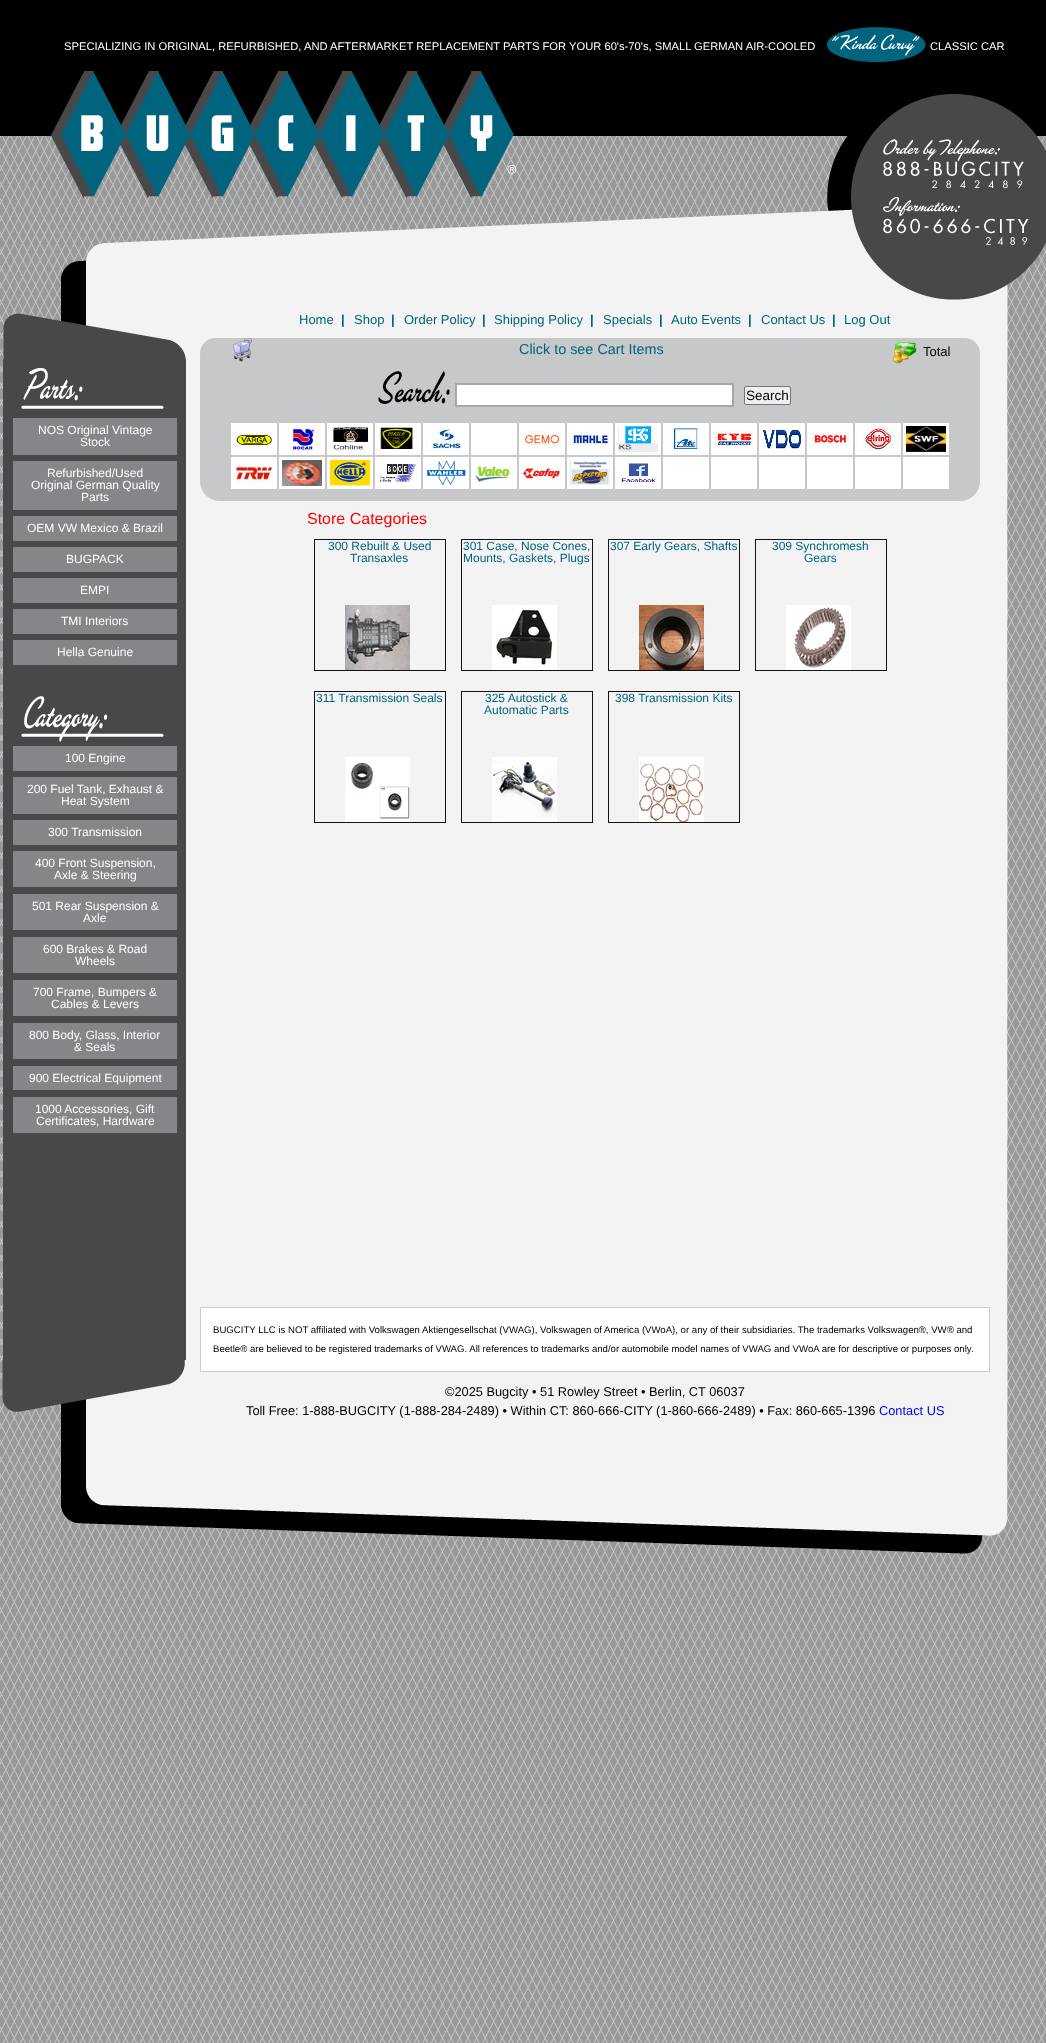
async function draw(canvas) {
	canvas.width = 1046;
	canvas.height = 2043;
	const c = canvas.getContext('2d');
	c.miterLimit = 4;
	c.fontKerning = 'normal';
	async function loadImage(src) {
		const img = new Image();
		img.src = src;
		await img.decode();
		return img;
	}

	c.fillStyle = '#999';
	c.fillRect(0, 0, 1046, 2043);
	c.drawImage(await loadImage('img1.png'), 0, 136, 1046, 1907);
	c.fillStyle = '#000';
	c.fillRect(0, 0, 1046, 136);
	c.drawImage(await loadImage('img2.png'), 51, 27, 995, 273);
	c.font = '11.2px Liberation Sans';
	c.fillStyle = '#fff';
	c.fillText('SPECIALIZING IN ORIGINAL, REFURBISHED, AND AFTERMARKET REPLACEMENT PARTS FOR YOUR 60\'s-70\'s, SMALL GERMAN AIR-COOLED', 64, 50);
	c.fillText('CLASSIC CAR', 930, 50);
	c.drawImage(await loadImage('img3.png'), 61, 300, 947, 1137);
	c.drawImage(await loadImage('img4.png'), 3, 313, 183, 47);
	c.fillStyle = '#48484a';
	c.fillRect(3, 360, 183, 1000);
	c.drawImage(await loadImage('img5.png'), 21, 367, 143, 42);
	c.fillStyle = '#848689';
	c.fillRect(13, 418, 164, 37);
	c.font = '12px Liberation Sans';
	c.fillStyle = '#fff';
	c.fillText('NOS Original Vintage', 38, 434);
	c.fillText('Stock', 80, 446);
	c.fillStyle = '#848689';
	c.fillRect(13, 461, 164, 49);
	c.fillStyle = '#fff';
	for (const [text, x, y] of [
		['Refurbished/Used', 47, 477],
		['Original German Quality', 31, 489],
		['Parts', 81, 501],
	]) {
		c.fillText(text, x, y);
	}
	c.fillStyle = '#848689';
	c.fillRect(13, 516, 164, 25);
	c.fillStyle = '#fff';
	c.fillText('OEM VW Mexico & Brazil', 27, 532);
	c.fillStyle = '#848689';
	c.fillRect(13, 547, 164, 25);
	c.fillStyle = '#fff';
	c.fillText('BUGPACK', 66, 563);
	c.fillStyle = '#848689';
	c.fillRect(13, 578, 164, 25);
	c.fillStyle = '#fff';
	c.fillText('EMPI', 80, 594);
	c.fillStyle = '#848689';
	c.fillRect(13, 609, 164, 25);
	c.fillStyle = '#fff';
	c.fillText('TMI Interiors', 61, 625);
	c.fillStyle = '#848689';
	c.fillRect(13, 640, 164, 25);
	c.fillStyle = '#fff';
	c.fillText('Hella Genuine', 57, 656);
	c.drawImage(await loadImage('img6.png'), 21, 696, 143, 46);
	c.fillStyle = '#848689';
	c.fillRect(13, 746, 164, 25);
	c.fillStyle = '#fff';
	c.fillText('100 Engine', 65, 762);
	c.fillStyle = '#848689';
	c.fillRect(13, 777, 164, 37);
	c.fillStyle = '#fff';
	c.fillText('200 Fuel Tank, Exhaust &', 27, 793);
	c.fillText('Heat System', 61, 805);
	c.fillStyle = '#848689';
	c.fillRect(13, 820, 164, 25);
	c.fillStyle = '#fff';
	c.fillText('300 Transmission', 48, 836);
	c.fillStyle = '#848689';
	c.fillRect(13, 851, 164, 36);
	c.fillStyle = '#fff';
	c.fillText('400 Front Suspension,', 35, 867);
	c.fillText('Axle & Steering', 54, 879);
	c.fillStyle = '#848689';
	c.fillRect(13, 894, 164, 36);
	c.fillStyle = '#fff';
	c.fillText('501 Rear Suspension &', 32, 910);
	c.fillText('Axle', 83, 922);
	c.fillStyle = '#848689';
	c.fillRect(13, 937, 164, 36);
	c.fillStyle = '#fff';
	c.fillText('600 Brakes & Road', 43, 953);
	c.fillText('Wheels', 75, 965);
	c.fillStyle = '#848689';
	c.fillRect(13, 980, 164, 36);
	c.fillStyle = '#fff';
	c.fillText('700 Frame, Bumpers &', 33, 996);
	c.fillText('Cables & Levers', 51, 1008);
	c.fillStyle = '#848689';
	c.fillRect(13, 1023, 164, 36);
	c.fillStyle = '#fff';
	c.fillText('800 Body, Glass, Interior', 29, 1039);
	c.fillText('& Seals', 74, 1051);
	c.fillStyle = '#848689';
	c.fillRect(13, 1066, 164, 24);
	c.fillStyle = '#fff';
	c.fillText('900 Electrical Equipment', 29, 1082);
	c.fillStyle = '#848689';
	c.fillRect(13, 1097, 164, 36);
	c.fillStyle = '#fff';
	c.fillText('1000 Accessories, Gift', 35, 1113);
	c.fillText('Certificates, Hardware', 36, 1125);
	c.drawImage(await loadImage('img7.png'), 2, 1360, 183, 52);
	c.font = '13px Liberation Sans';
	c.fillStyle = '#00647f';
	c.fillText('Home', 299, 324);
	c.font = 'bold 13px Liberation Sans';
	c.fillText('|', 341, 324);
	c.font = '13px Liberation Sans';
	c.fillText('Shop', 354, 324);
	c.font = 'bold 13px Liberation Sans';
	c.fillText('|', 391, 324);
	c.font = '13px Liberation Sans';
	c.fillText('Order Policy', 404, 324);
	c.font = 'bold 13px Liberation Sans';
	c.fillText('|', 482, 324);
	c.font = '13px Liberation Sans';
	c.fillText('Shipping Policy', 494, 324);
	c.font = 'bold 13px Liberation Sans';
	c.fillText('|', 590, 324);
	c.font = '13px Liberation Sans';
	c.fillText('Specials', 603, 324);
	c.font = 'bold 13px Liberation Sans';
	c.fillText('|', 659, 324);
	c.font = '13px Liberation Sans';
	c.fillText('Auto Events', 671, 324);
	c.font = 'bold 13px Liberation Sans';
	c.fillText('|', 748, 324);
	c.font = '13px Liberation Sans';
	c.fillText('Contact Us', 761, 324);
	c.font = 'bold 13px Liberation Sans';
	c.fillText('|', 832, 324);
	c.font = '13px Liberation Sans';
	c.fillText('Log Out', 844, 324);
	c.fillStyle = '#c7c8ca';
	c.beginPath();
	c.roundRect(200, 357, 780, 144, [0, 0, 20, 20]);
	c.fill();
	c.beginPath();
	c.roundRect(200, 338, 780, 31, 15.5);
	c.fill();
	c.drawImage(await loadImage('img8.png'), 233, 338, 20, 24);
	c.font = '14.4px Liberation Sans';
	c.fillStyle = '#00647f';
	c.fillText('Click to see Cart Items', 519, 354);
	c.drawImage(await loadImage('img9.png'), 892, 341, 25, 23);
	c.font = '13px Liberation Sans';
	c.fillStyle = '#000';
	c.fillText('Total', 923, 356);
	c.drawImage(await loadImage('img10.png'), 378, 371, 72, 33);
	c.fillStyle = '#fff';
	c.beginPath();
	c.rect(456, 384, 277, 22);
	c.fill();
	c.strokeStyle = '#a8a8a8';
	c.lineWidth = 2;
	c.stroke();
	c.fillStyle = '#efefef';
	c.beginPath();
	c.roundRect(744.5, 386.5, 46, 18, 1.5);
	c.fill();
	c.strokeStyle = '#767676';
	c.lineWidth = 1;
	c.stroke();
	c.font = '13.5px Liberation Sans';
	c.fillStyle = '#000';
	c.fillText('Search', 746, 400);
	c.fillStyle = '#fff';
	c.fillRect(231, 423, 46, 32);
	c.drawImage(await loadImage('img11.png'), 236, 434, 37, 11);
	c.fillRect(279, 423, 46, 32);
	c.drawImage(await loadImage('img12.png'), 292, 426, 25, 26);
	c.fillRect(327, 423, 46, 32);
	c.drawImage(await loadImage('img13.png'), 333, 427, 35, 23);
	c.fillRect(375, 423, 46, 32);
	c.drawImage(await loadImage('img14.png'), 380, 427, 33, 22);
	c.fillRect(423, 423, 46, 32);
	c.drawImage(await loadImage('img15.png'), 431, 426, 30, 25);
	c.fillRect(471, 423, 46, 32);
	c.fillRect(519, 423, 46, 32);
	c.drawImage(await loadImage('img16.png'), 522, 431, 40, 15);
	c.fillRect(567, 423, 46, 32);
	c.drawImage(await loadImage('img17.png'), 570, 431, 40, 15);
	c.fillRect(615, 423, 46, 32);
	c.drawImage(await loadImage('img18.png'), 618, 426, 40, 26);
	c.fillRect(663, 423, 46, 32);
	c.drawImage(await loadImage('img19.png'), 671, 426, 30, 25);
	c.fillRect(711, 423, 46, 32);
	c.drawImage(await loadImage('img20.png'), 714, 431, 40, 15);
	c.fillRect(759, 423, 46, 32);
	c.drawImage(await loadImage('img21.png'), 763, 429, 38, 20);
	c.fillRect(807, 423, 46, 32);
	c.drawImage(await loadImage('img22.png'), 812, 431, 38, 15);
	c.fillRect(855, 423, 46, 32);
	c.drawImage(await loadImage('img23.png'), 863, 426, 30, 25);
	c.fillRect(903, 423, 46, 32);
	c.drawImage(await loadImage('img24.png'), 906, 426, 40, 26);
	c.fillRect(231, 457, 46, 32);
	c.drawImage(await loadImage('img25.png'), 234, 463, 40, 21);
	c.fillRect(279, 457, 46, 32);
	c.drawImage(await loadImage('img26.png'), 282, 460, 40, 26);
	c.fillRect(327, 457, 46, 32);
	c.drawImage(await loadImage('img27.png'), 330, 460, 40, 26);
	c.fillRect(375, 457, 46, 32);
	c.drawImage(await loadImage('img28.png'), 380, 464, 36, 18);
	c.fillRect(423, 457, 46, 32);
	c.drawImage(await loadImage('img29.png'), 426, 460, 40, 26);
	c.fillRect(471, 457, 46, 32);
	c.drawImage(await loadImage('img30.png'), 475, 466, 35, 16);
	c.fillRect(519, 457, 46, 32);
	c.drawImage(await loadImage('img31.png'), 523, 467, 37, 14);
	c.fillRect(567, 457, 46, 32);
	c.drawImage(await loadImage('img32.png'), 570, 460, 40, 26);
	c.fillRect(615, 457, 46, 32);
	c.drawImage(await loadImage('img33.png'), 621, 463, 35, 20);
	for (const [x, y, w, h, color] of [
		[663, 457, 46, 32, '#fff'],
		[711, 457, 46, 32, '#fff'],
		[759, 457, 46, 32, '#fff'],
		[807, 457, 46, 32, '#fff'],
		[855, 457, 46, 32, '#fff'],
		[903, 457, 46, 32, '#fff'],
	]) {
		c.fillStyle = color;
		c.fillRect(x, y, w, h);
	}
	c.font = '16px Liberation Sans';
	c.fillStyle = '#f00';
	c.fillText('Store Categories', 307, 524);
	c.strokeStyle = '#131313';
	c.strokeRect(314.5, 539.5, 131, 131);
	c.font = '12px Liberation Sans';
	c.fillStyle = '#00647f';
	c.fillText('300 Rebuilt & Used', 328, 550);
	c.fillText('Transaxles', 350, 562);
	c.drawImage(await loadImage('img34.png'), 345, 605, 65, 65);
	c.strokeRect(461.5, 539.5, 131, 131);
	c.fillText('301 Case, Nose Cones,', 463, 550);
	c.fillText('Mounts, Gaskets, Plugs', 463, 562);
	c.drawImage(await loadImage('img35.png'), 492, 605, 65, 65);
	c.strokeRect(608.5, 539.5, 131, 131);
	c.fillText('307 Early Gears, Shafts', 610, 550);
	c.drawImage(await loadImage('img36.png'), 639, 605, 65, 65);
	c.strokeRect(755.5, 539.5, 131, 131);
	c.fillText('309 Synchromesh', 772, 550);
	c.fillText('Gears', 804, 562);
	c.drawImage(await loadImage('img37.png'), 786, 605, 65, 65);
	c.strokeRect(314.5, 691.5, 131, 131);
	c.fillText('311 Transmission Seals', 316, 702);
	c.drawImage(await loadImage('img38.png'), 345, 757, 65, 65);
	c.strokeRect(461.5, 691.5, 131, 131);
	c.fillText('325 Autostick &', 485, 702);
	c.fillText('Automatic Parts', 484, 714);
	c.drawImage(await loadImage('img39.png'), 492, 757, 65, 65);
	c.strokeRect(608.5, 691.5, 131, 131);
	c.fillText('398 Transmission Kits', 615, 702);
	c.drawImage(await loadImage('img40.png'), 639, 757, 65, 65);
	c.fillStyle = '#fff';
	c.beginPath();
	c.rect(200.5, 1307.5, 789, 64);
	c.fill();
	c.strokeStyle = '#ccc';
	c.stroke();
	c.font = '9.6px Liberation Sans';
	c.fillStyle = '#000';
	c.fillText('BUGCITY LLC is NOT affiliated with Volkswagen Aktiengesellschat (VWAG), Volkswagen of America (VWoA), or any of their subsidiaries. The trademarks Volkswagen®, VW® and', 213, 1333);
	c.fillText('Beetle® are believed to be registered trademarks of VWAG. All references to trademarks and/or automobile model names of VWAG and VWoA are for descriptive or purposes only.', 213, 1352);
	c.font = '12.8px Liberation Sans';
	c.fillText('©2025 Bugcity • 51 Rowley Street • Berlin, CT 06037', 445, 1396);
	c.fillText('Toll Free: 1-888-BUGCITY (1-888-284-2489) • Within CT: 860-666-CITY (1-860-666-2489) • Fax: 860-665-1396', 246, 1415);
	c.fillStyle = '#00e';
	c.fillText('Contact US', 879, 1415);
	c.drawImage(await loadImage('img41.png'), 61, 1427, 947, 127);
}

draw(document.querySelector('canvas'));
